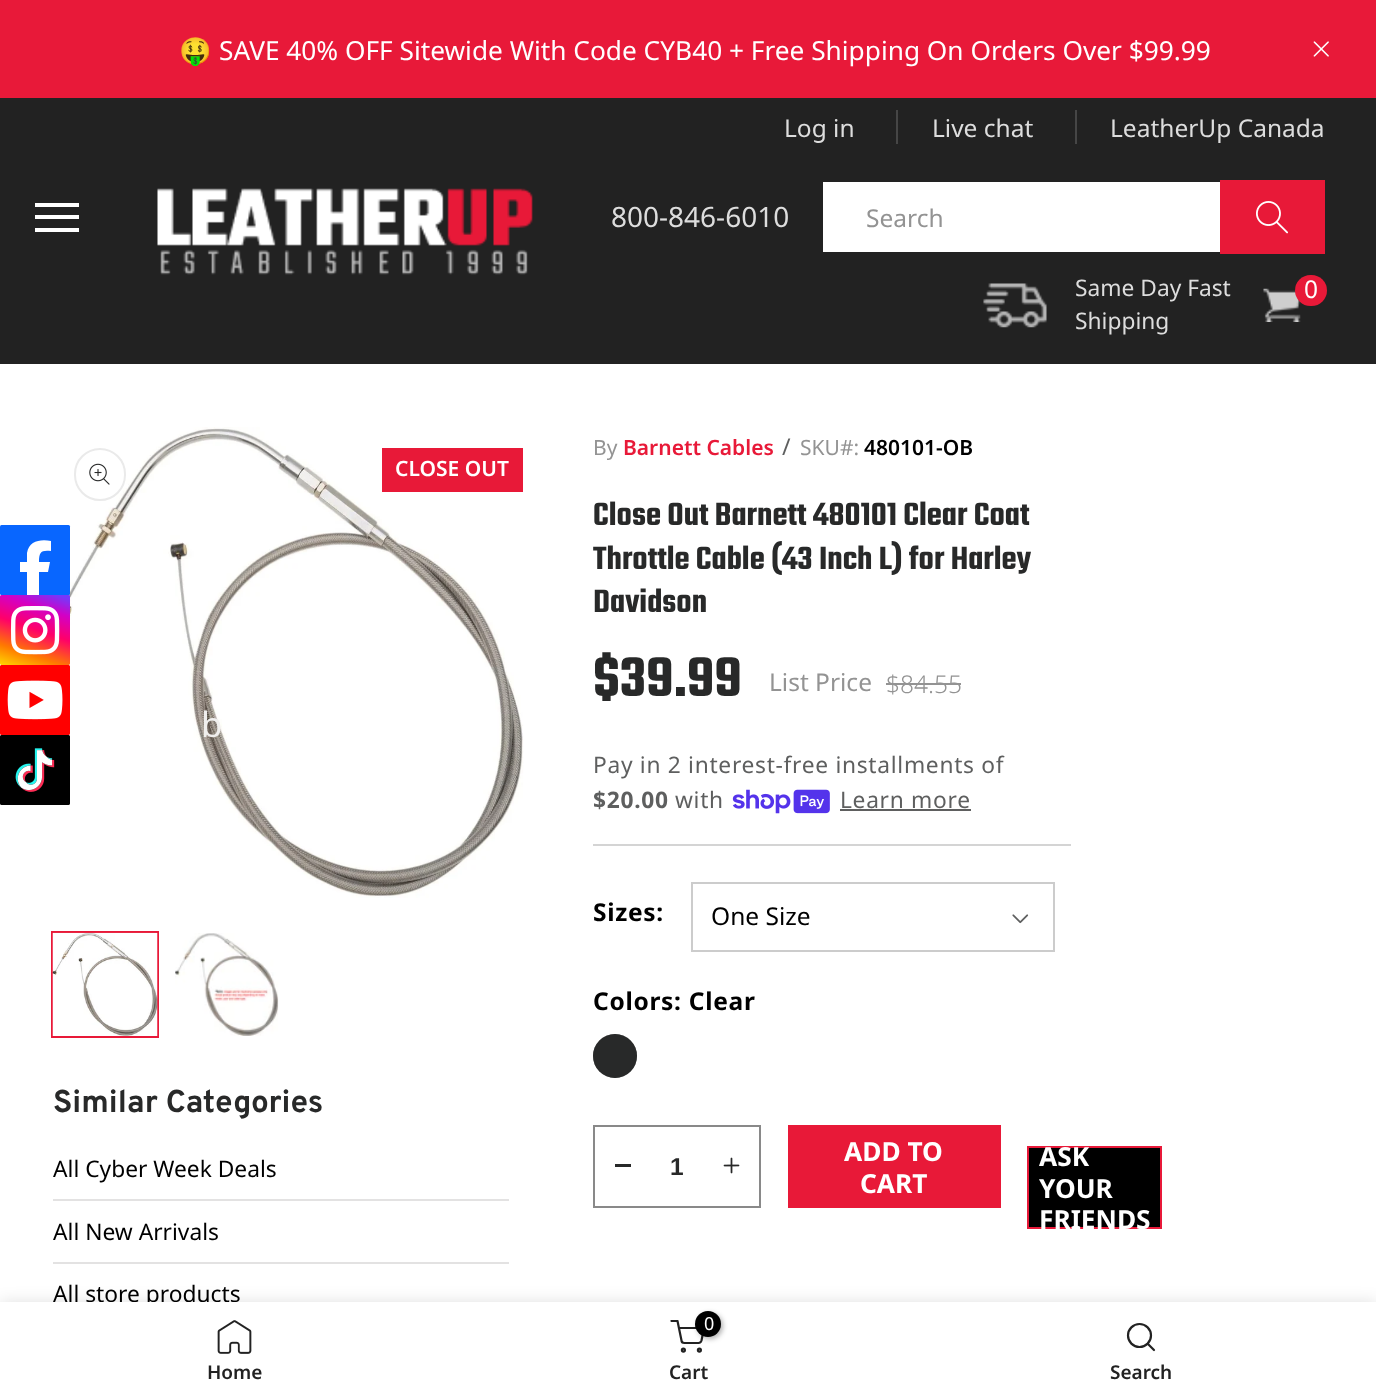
async function draw(canvas) {
	canvas.width = 1376;
	canvas.height = 1397;
	const c = canvas.getContext('2d');
	c.miterLimit = 4;
	c.fontKerning = 'normal';
	async function loadImage(src) {
		const img = new Image();
		img.src = src;
		await img.decode();
		return img;
	}

	c.fillStyle = '#fff';
	c.fillRect(0, 0, 1376, 1397);
	c.fillStyle = '#e81939';
	c.fillRect(0, 0, 1376, 98);
	c.font = '26.25px Noto Color Emoji';
	c.fillStyle = '#fff';
	c.fillText('🤑', 179, 60);
	c.font = '26.25px Noto Sans';
	c.fillText('SAVE 40% OFF Sitewide With Code CYB40 + Free Shipping On Orders Over $99.99', 219, 60);
	c.drawImage(await loadImage('img1.png'), 1313, 41, 16, 16);
	for (const [x, y, w, h, color] of [
		[0, 98, 1376, 266, '#222'],
		[35, 203, 44, 4, '#fff'],
		[35, 215, 44, 4, '#fff'],
		[35, 228, 44, 4, '#fff'],
	]) {
		c.fillStyle = color;
		c.fillRect(x, y, w, h);
	}
	c.drawImage(await loadImage('img2.png'), 157, 188, 376, 87);
	c.font = '24.5px Noto Sans';
	c.fillStyle = '#ddd';
	c.fillText('Log in', 784, 137);
	c.fillText('Live chat', 932, 137);
	c.fillStyle = '#464646';
	c.fillRect(896, 110, 2, 34);
	c.fillStyle = '#ddd';
	c.fillText('LeatherUp Canada', 1110, 137);
	c.fillStyle = '#464646';
	c.fillRect(1075, 110, 2, 34);
	c.font = '28px Noto Sans';
	c.fillStyle = '#ddd';
	c.fillText('800-846-6010', 611, 227);
	c.fillStyle = '#fff';
	c.fillRect(823, 182, 397, 70);
	c.font = '24.5px Noto Sans';
	c.fillStyle = '#939393';
	c.fillText('Search', 866, 227);
	c.fillStyle = '#e81938';
	c.fillRect(1220, 180, 105, 74);
	c.drawImage(await loadImage('img3.png'), 1256, 201, 32, 33);
	c.drawImage(await loadImage('img4.png'), 983, 283, 64, 45);
	c.font = '22.75px Noto Sans';
	c.fillStyle = '#ddd';
	c.fillText('Same Day Fast', 1075, 296);
	c.fillText('Shipping', 1075, 329);
	c.drawImage(await loadImage('img5.png'), 1263, 288, 38, 34);
	c.fillStyle = '#e81938';
	c.beginPath();
	c.roundRect(1295, 275, 32, 31, 15.5);
	c.fill();
	c.font = '24.5px Noto Sans';
	c.fillStyle = '#fff';
	c.fillText('0', 1304, 298);
	c.drawImage(await loadImage('img9.png'), 52, 427, 472, 471);
	c.fillStyle = '#0866ff';
	c.beginPath();
	c.roundRect(0, 525, 70, 70, 1.5);
	c.fill();
	c.fillStyle = '#fff';
	c.beginPath();
	c.moveTo(48, 572);
	c.lineTo(39, 572);
	c.lineTo(39, 595);
	c.lineTo(27, 595);
	c.lineTo(27, 572);
	c.lineTo(20, 572);
	c.lineTo(20, 562);
	c.lineTo(27, 562);
	c.lineTo(27, 553);
	c.bezierCurveTo(29, 541, 40, 539, 51, 541);
	c.lineTo(51, 551);
	c.bezierCurveTo(41, 550, 39, 552, 39, 562);
	c.lineTo(50, 562);
	c.closePath();
	c.fill();
	c.drawImage(await loadImage('img6.png'), 0, 595, 70, 70);
	c.drawImage(await loadImage('img7.png'), 0, 665, 70, 70);
	c.drawImage(await loadImage('img8.png'), 0, 735, 70, 70);
	c.beginPath();
	c.roundRect(75, 449, 50, 51, 25);
	c.strokeStyle = '#eaeaea';
	c.lineWidth = 2;
	c.stroke();
	c.drawImage(await loadImage('img10.png'), 89, 463, 21, 22);
	c.fillStyle = '#e81938';
	c.fillRect(382, 448, 141, 44);
	c.font = '600 21px Noto Sans';
	c.fillStyle = '#fff';
	c.fillText('CLOSE OUT', 395, 476);
	c.strokeStyle = '#e81938';
	c.strokeRect(52, 932, 106, 105);
	c.drawImage(await loadImage('img11.png'), 52, 932, 106, 104);
	c.drawImage(await loadImage('img12.png'), 175, 933, 104, 103);
	c.font = 'bold 31.5px Overpass';
	c.fillStyle = '#282929';
	c.fillText('Similar Categories', 53, 1112);
	c.fillStyle = '#e3e2e2';
	c.fillRect(53, 1199, 456, 2);
	c.font = '22.75px Noto Sans';
	c.fillStyle = '#000';
	c.fillText('All Cyber Week Deals', 53, 1177);
	c.fillStyle = '#e3e2e2';
	c.fillRect(53, 1262, 456, 2);
	c.fillStyle = '#000';
	c.fillText('All New Arrivals', 53, 1240);
	c.fillText('All store products', 53, 1302);
	c.font = '21px Noto Sans';
	c.fillStyle = '#939393';
	c.fillText('By', 593, 455);
	c.font = '600 21px Noto Sans';
	c.fillStyle = '#e81938';
	c.fillText('Barnett Cables', 623, 455);
	c.font = '23px Noto Sans';
	c.fillStyle = '#5e5f5f';
	c.fillText('/', 782, 455);
	c.font = '21px Noto Sans';
	c.fillStyle = '#939393';
	c.fillText('SKU#:', 800, 455);
	c.font = '600 21px Noto Sans';
	c.fillStyle = '#000';
	c.fillText('480101-OB', 864, 455);
	c.font = '600 35px Teko';
	c.fillStyle = '#282929';
	for (const [text, x, y] of [
		['Close Out Barnett 480101 Clear Coat', 593, 525],
		['Throttle Cable (43 Inch L) for Harley', 593, 569],
		['Davidson', 593, 612],
	]) {
		c.fillText(text, x, y);
	}
	c.font = '600 61px Teko';
	c.fillText('$39.99', 593, 696);
	c.font = '24.5px Noto Sans';
	c.fillStyle = '#939393';
	c.fillText('List Price', 769, 691);
	c.font = '300 24.5px Noto Sans';
	c.fillText('$84.55', 886, 693);
	c.fillRect(886, 683, 75, 2);
	c.letterSpacing = '0.7px';
	c.font = '22.75px "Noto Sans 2"';
	c.fillStyle = '#5e5f5f';
	c.fillText('Pay in 2 interest-free installments of', 593, 773);
	c.font = 'bold 22.75px Noto Sans';
	c.fillText('$20.00', 593, 808);
	c.font = '22.75px "Noto Sans 2"';
	c.fillText('with', 675, 808);
	c.drawImage(await loadImage('img13.png'), 732, 789, 98, 25);
	c.fillText('Learn more', 840, 808);
	c.fillRect(840, 809, 131, 2);
	c.fillStyle = '#d4d4d4';
	c.fillRect(593, 844, 478, 2);
	c.font = 'bold 24.5px "Noto Sans 2"';
	c.fillStyle = '#000';
	c.fillText('Sizes:', 593, 921);
	c.strokeStyle = '#ccc';
	c.strokeRect(692, 883, 362, 68);
	c.letterSpacing = '0px';
	c.font = '24.5px Noto Sans';
	c.fillText('One Size', 711, 925);
	c.drawImage(await loadImage('img14.png'), 1012, 914, 17, 10);
	c.letterSpacing = '0.7px';
	c.font = 'bold 24.5px "Noto Sans 2"';
	c.fillText('Colors: Clear', 593, 1010);
	c.fillStyle = '#282929';
	c.beginPath();
	c.arc(615, 1056, 22, 0, 2 * Math.PI);
	c.fill();
	c.beginPath();
	c.arc(615, 1056, 21, 0, 2 * Math.PI);
	c.strokeStyle = '#2829298c';
	c.stroke();
	c.fillRect(615, 1164, 16, 3);
	c.drawImage(await loadImage('img15.png'), 723, 1157, 17, 17);
	c.strokeStyle = '#898989';
	c.strokeRect(594, 1126, 166, 81);
	c.letterSpacing = '0px';
	c.font = 'bold 24.5px Liberation Sans';
	c.fillText('1', 670, 1175);
	c.fillStyle = '#e81938';
	c.fillRect(788, 1125, 213, 83);
	c.font = 'bold 26.25px "Noto Sans 2"';
	c.fillStyle = '#fff';
	c.fillText('ADD TO', 844, 1161);
	c.fillText('CART', 860, 1193);
	c.fillStyle = '#000';
	c.beginPath();
	c.rect(1028, 1147, 133, 81);
	c.fill();
	c.strokeStyle = '#e81939';
	c.stroke();
	c.fillStyle = '#fff';
	for (const [text, x, y] of [
		['ASK', 1039, 1166],
		['YOUR', 1039, 1198],
		['FRIENDS', 1039, 1229],
	]) {
		c.fillText(text, x, y);
	}
	c.font = '35px Noto Sans';
	c.fillStyle = '#f0efee';
	c.fillText('b', 201, 737);
	c.fillStyle = '#0000001f';
	c.filter = 'blur(8px)';
	c.beginPath();
	c.rect(0, 1302, 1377, 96);
	c.fill();
	c.filter = 'none';
	c.fillStyle = '#fff';
	c.fillRect(0, 1302, 1376, 95);
	c.drawImage(await loadImage('img16.png'), 217, 1320, 35, 34);
	c.font = '600 19px Noto Sans';
	c.fillStyle = '#222';
	c.fillText('Home', 207, 1379);
	c.beginPath();
	c.arc(683.4, 1350.1, 1.5, 0, 2 * Math.PI);
	c.strokeStyle = '#222';
	c.lineWidth = 2.2;
	c.stroke();
	c.beginPath();
	c.arc(699.4, 1350.1, 1.5, 0, 2 * Math.PI);
	c.stroke();
	c.save();
	c.beginPath();
	c.rect(670, 1320, 35, 35);
	c.clip();
	c.beginPath();
	c.moveTo(671.5, 1321);
	c.lineTo(677.5, 1321);
	c.lineTo(681.5, 1340.5);
	c.bezierCurveTo(681.5, 1342, 683, 1343, 684.5, 1343);
	c.lineTo(698.5, 1343);
	c.bezierCurveTo(700, 1343, 701, 1342, 701.5, 1340.5);
	c.lineTo(704, 1328);
	c.lineTo(679, 1328);
	c.lineCap = 'round';
	c.lineJoin = 'round';
	c.stroke();
	c.restore();
	c.fillStyle = '#0000004d';
	c.filter = 'blur(2.5px)';
	c.beginPath();
	c.roundRect(697, 1313, 26, 26, 13);
	c.fill();
	c.filter = 'none';
	c.fillStyle = '#000';
	c.beginPath();
	c.arc(708, 1324, 13, 0, 2 * Math.PI);
	c.fill();
	c.font = '18px Noto Sans';
	c.fillStyle = '#fff';
	c.fillText('0', 704, 1330);
	c.font = '600 19px Noto Sans';
	c.fillStyle = '#222';
	c.fillText('Cart', 669, 1379);
	c.beginPath();
	c.arc(1139.5, 1335.5, 11.5, 0, 2 * Math.PI);
	c.stroke();
	c.beginPath();
	c.moveTo(1154, 1350);
	c.lineTo(1148, 1344);
	c.lineCap = 'round';
	c.lineJoin = 'round';
	c.stroke();
	c.fillText('Search', 1110, 1379);
}

draw(document.querySelector('canvas'));
